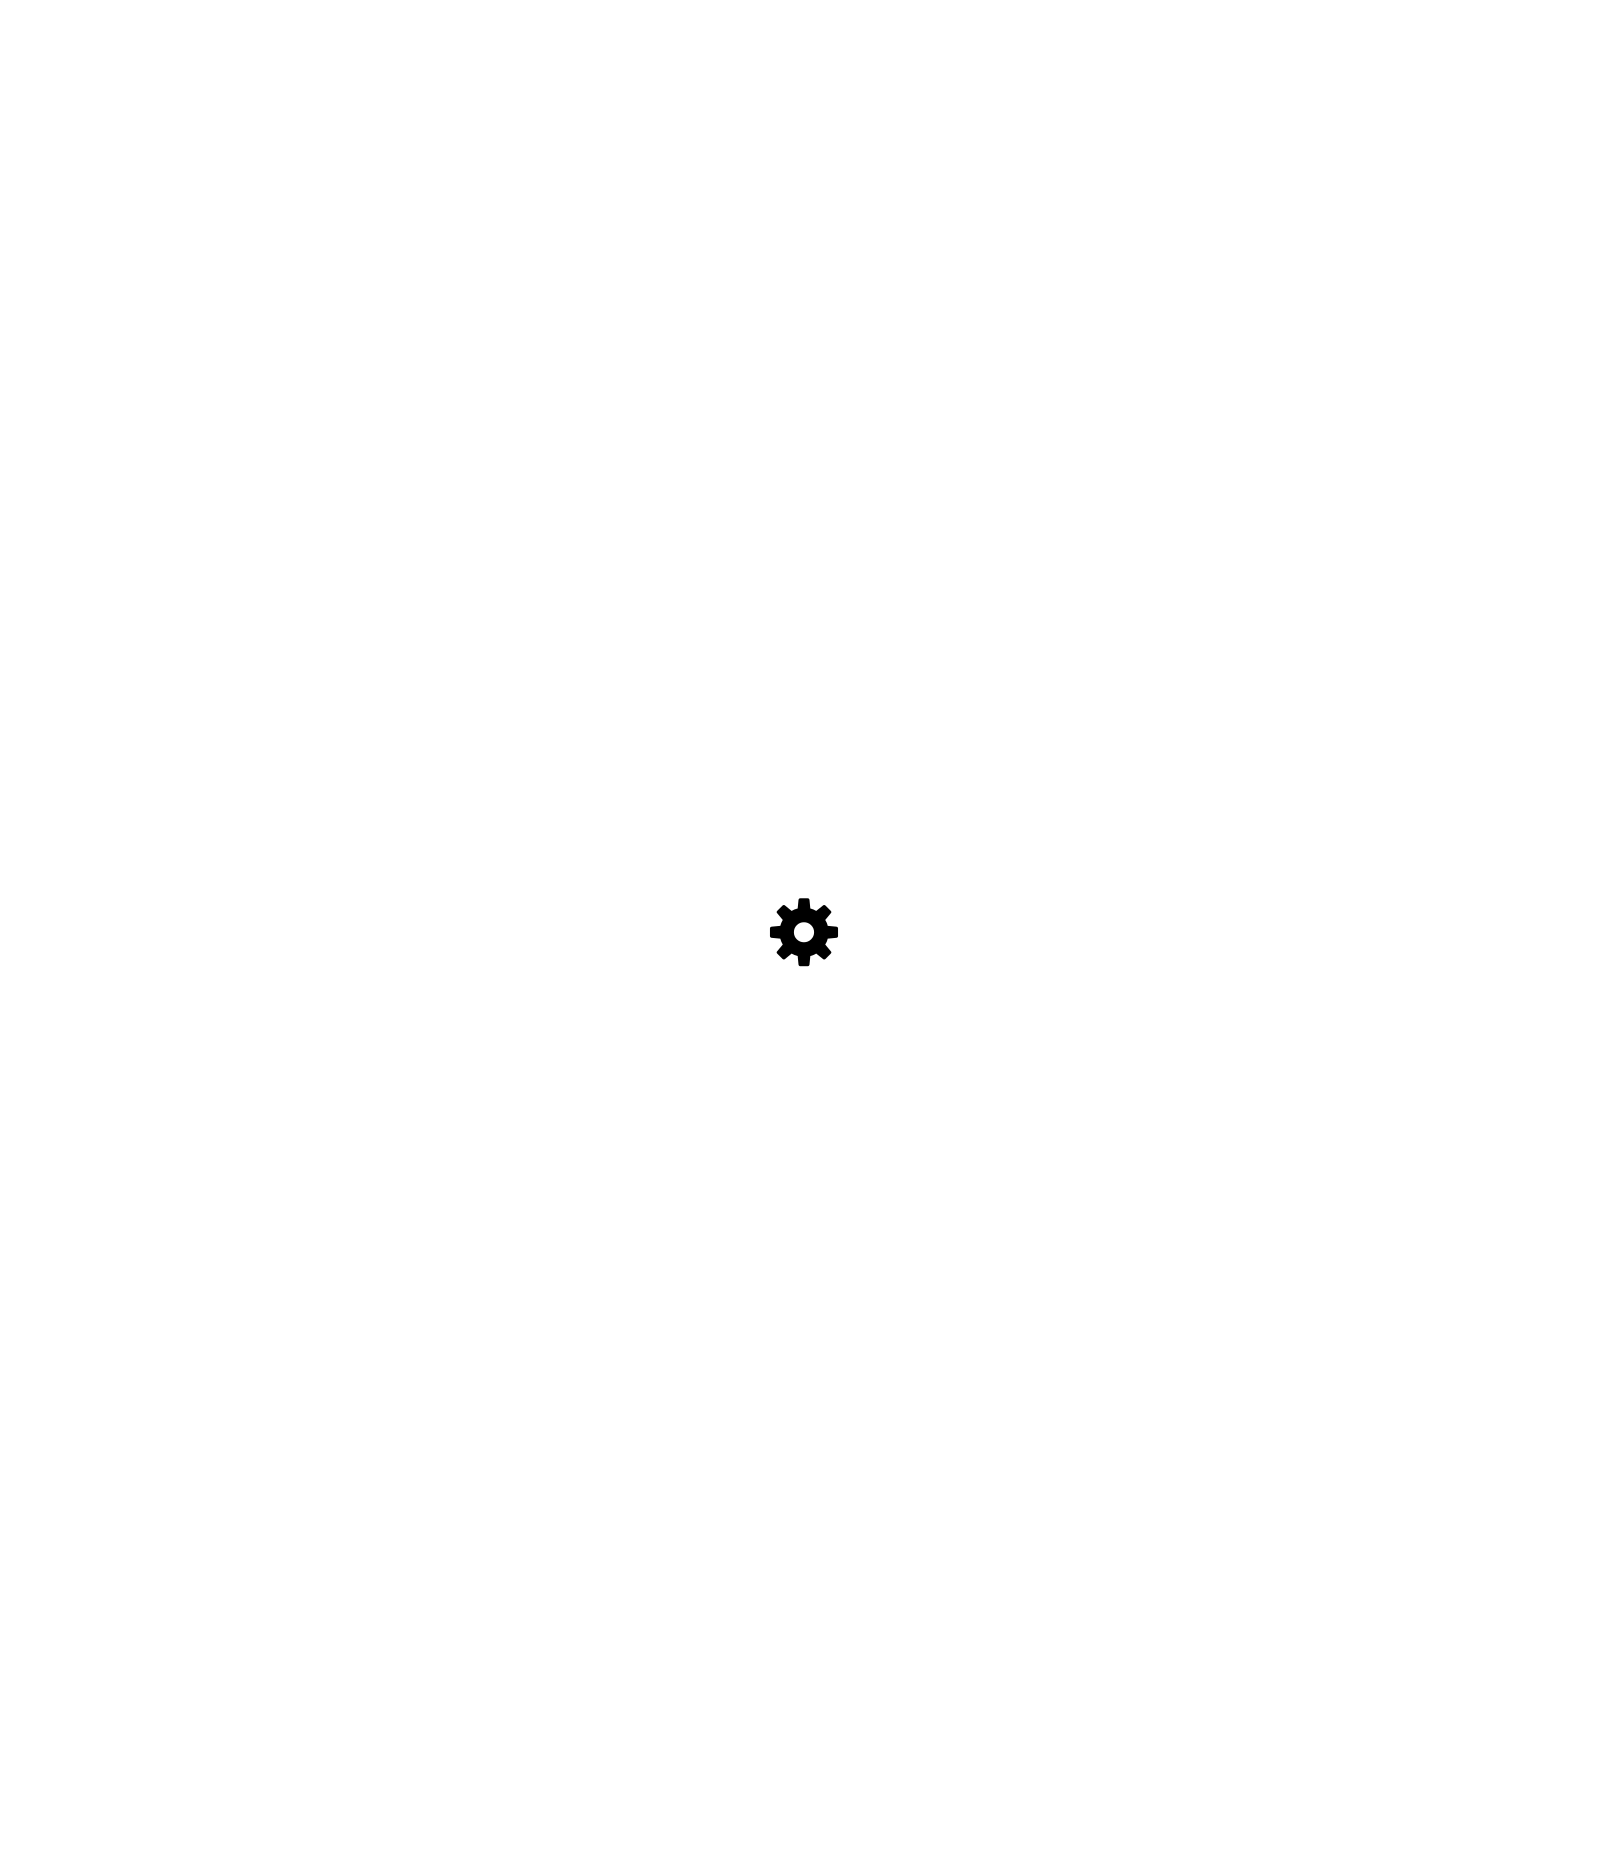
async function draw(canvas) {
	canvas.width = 1608;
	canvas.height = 1868;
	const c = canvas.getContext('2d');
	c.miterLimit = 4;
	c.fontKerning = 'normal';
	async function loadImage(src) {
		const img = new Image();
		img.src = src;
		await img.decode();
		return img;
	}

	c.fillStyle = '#fff';
	c.fillRect(0, 0, 1608, 1868);
	c.drawImage(await loadImage('img1.png'), 769, 898, 70, 69);
}

draw(document.querySelector('canvas'));
